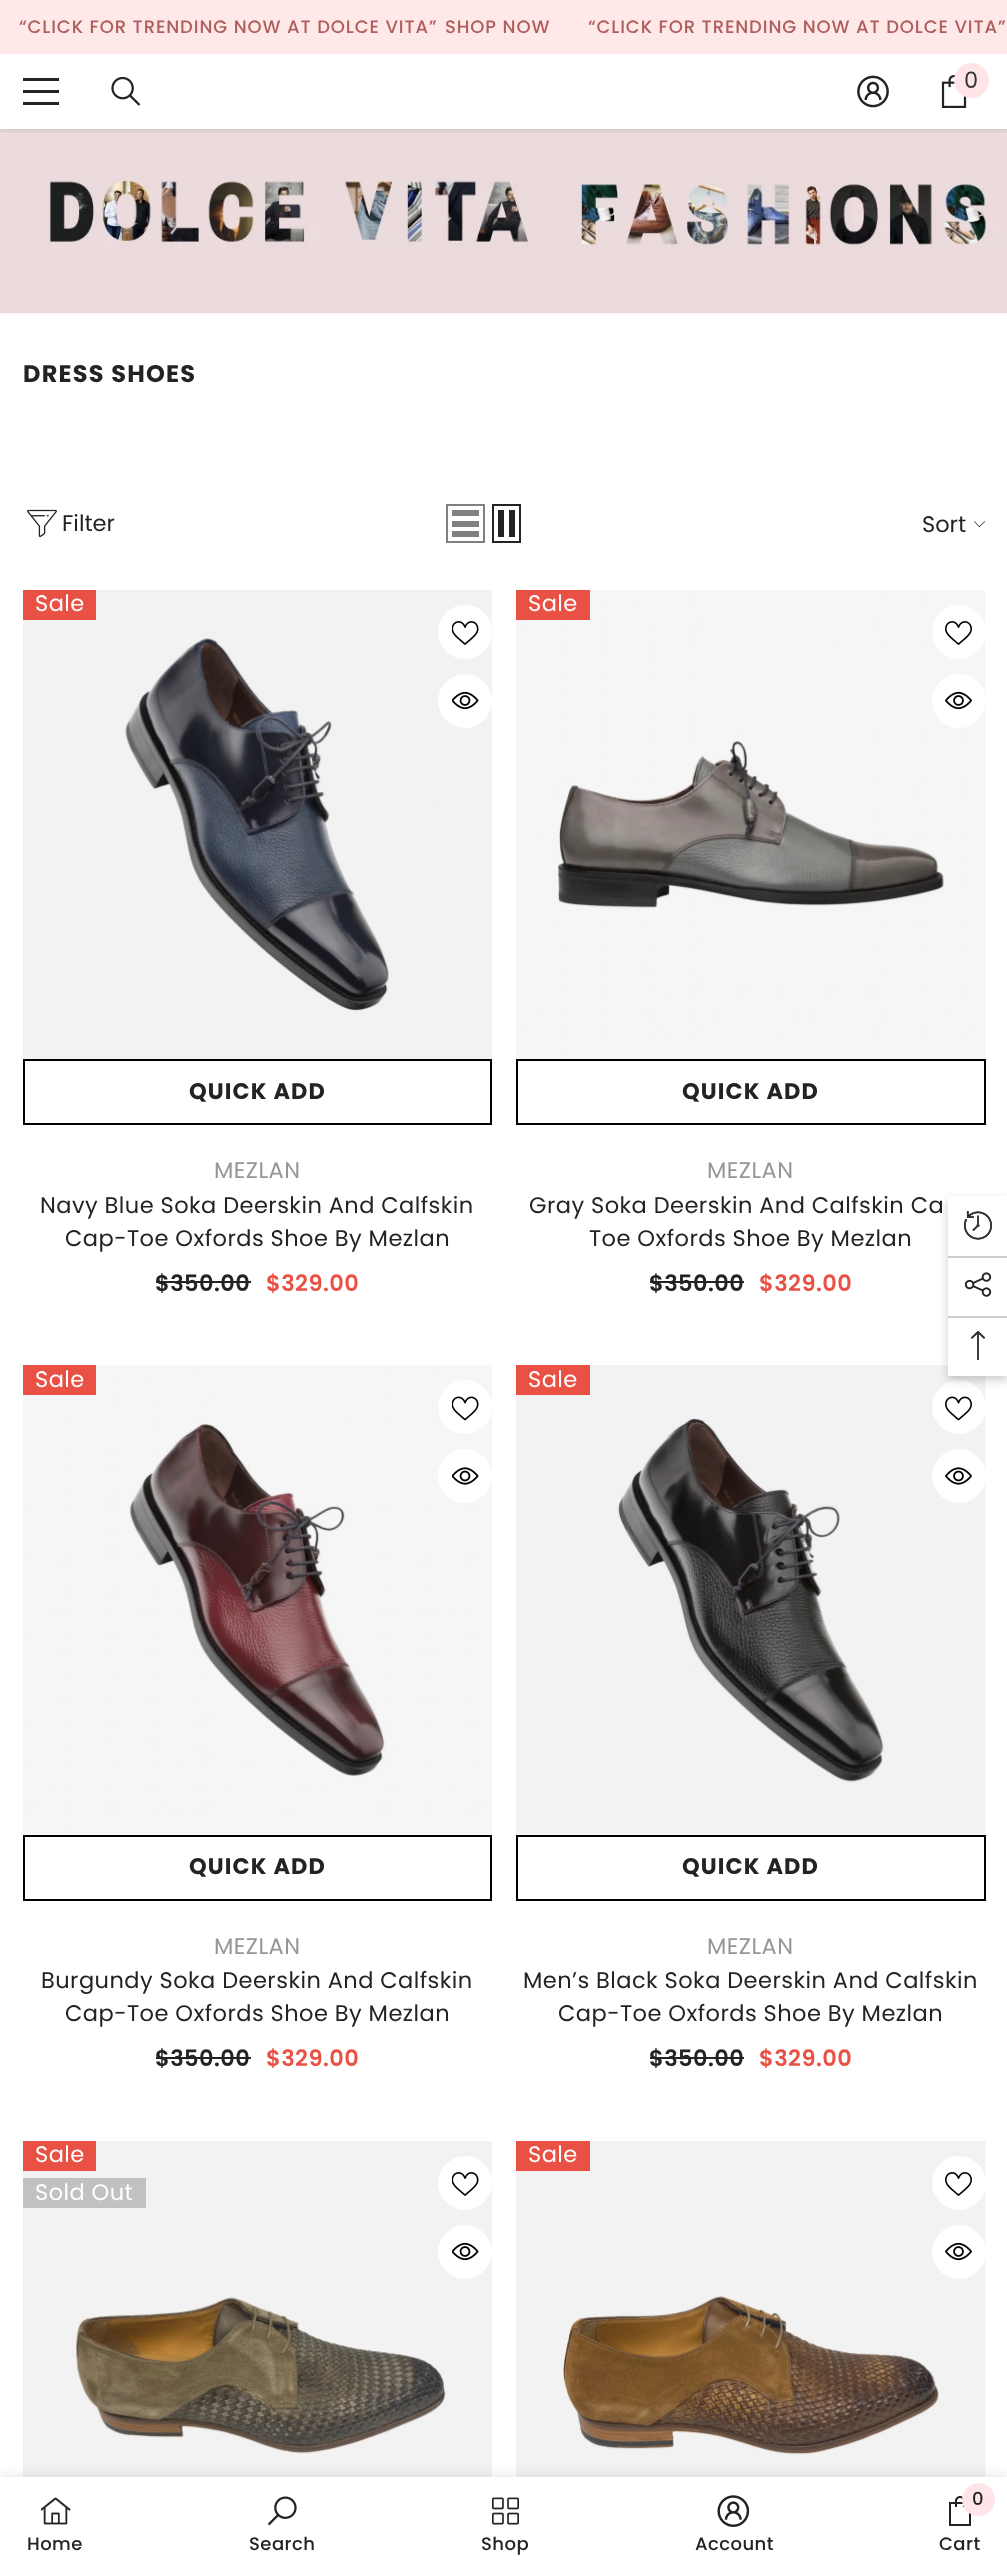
async function draw(canvas) {
	canvas.width = 1007;
	canvas.height = 2569;
	const c = canvas.getContext('2d');
	c.miterLimit = 4;
	c.fontKerning = 'normal';
	async function loadImage(src) {
		const img = new Image();
		img.src = src;
		await img.decode();
		return img;
	}

	c.fillStyle = '#fff';
	c.fillRect(0, 0, 1007, 2569);
	c.fillStyle = '#ffe8e8';
	c.fillRect(0, 0, 1007, 54);
	c.letterSpacing = '0.9px';
	c.font = '500 18px Poppins';
	c.fillStyle = '#b05d5d';
	for (const [text, x, y] of [
		['“CLICK FOR TRENDING NOW AT DOLCE VITA”', 19, 33],
		['SHOP NOW', 445, 33],
		['“CLICK FOR TRENDING NOW AT DOLCE VITA”', 588, 33],
	]) {
		c.fillText(text, x, y);
	}
	c.drawImage(await loadImage('img4.png'), 0, 129, 1007, 185);
	c.save();
	c.beginPath();
	c.rect(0, 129, 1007, 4);
	c.clip();
	c.fillStyle = '#0000001a';
	c.filter = 'blur(2px)';
	c.beginPath();
	c.rect(0, 56, 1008, 75);
	c.fill();
	c.filter = 'none';
	c.restore();
	for (const [x, y, w, h, color] of [
		[23, 90, 36, 3, '#232323'],
		[23, 78, 36, 3, '#232323'],
		[23, 102, 36, 3, '#232323'],
	]) {
		c.fillStyle = color;
		c.fillRect(x, y, w, h);
	}
	c.drawImage(await loadImage('img1.png'), 111, 76, 30, 30);
	c.drawImage(await loadImage('img2.png'), 857, 75, 32, 33);
	c.drawImage(await loadImage('img3.png'), 941, 75, 26, 33);
	c.fillStyle = '#ffe5e8';
	c.beginPath();
	c.arc(971.5, 80.5, 17.5, 0, 2 * Math.PI);
	c.fill();
	c.letterSpacing = '0.45px';
	c.font = '22.5px Poppins';
	c.fillStyle = '#323232';
	c.fillText('0', 964, 88);
	c.letterSpacing = '1.25px';
	c.font = 'bold 24px Poppins';
	c.fillStyle = '#232323';
	c.fillText('DRESS SHOES', 23, 382);
	c.drawImage(await loadImage('img5.png'), 27, 509, 30, 29);
	c.letterSpacing = '0px';
	c.font = '22.5px Poppins';
	c.fillText('Filter', 62, 531);
	c.strokeStyle = '#808080';
	c.lineWidth = 2;
	c.strokeRect(447, 505, 37, 37);
	for (const [x, y, w, h, color] of [
		[452, 531, 27, 6, '#808080'],
		[452, 521, 27, 6, '#808080'],
		[452, 510, 27, 6, '#808080'],
	]) {
		c.fillStyle = color;
		c.fillRect(x, y, w, h);
	}
	c.strokeStyle = '#232323';
	c.strokeRect(493, 505, 27, 37);
	c.fillStyle = '#232323';
	c.fillRect(509, 510, 6, 27);
	c.fillRect(498, 510, 6, 27);
	c.fillText('Sort', 922, 532);
	c.drawImage(await loadImage('img6.png'), 974, 521, 12, 7);
	c.drawImage(await loadImage('img7.png'), 23, 590, 469, 469);
	c.fillStyle = '#e95144';
	c.fillRect(23, 590, 73, 30);
	c.letterSpacing = '0.45px';
	c.fillStyle = '#fff';
	c.fillText('Sale', 35, 611);
	c.beginPath();
	c.arc(465, 632, 27, 0, 2 * Math.PI);
	c.fill();
	c.drawImage(await loadImage('img8.png'), 452, 621, 27, 24);
	c.beginPath();
	c.arc(465, 701, 27, 0, 2 * Math.PI);
	c.fill();
	c.drawImage(await loadImage('img9.png'), 452, 691, 27, 19);
	c.strokeStyle = '#000';
	c.strokeRect(24, 1060, 467, 64);
	c.letterSpacing = '1.1px';
	c.font = 'bold 22.5px Poppins';
	c.fillStyle = '#232323';
	c.fillText('QUICK ADD', 189, 1099);
	c.letterSpacing = '0.45px';
	c.font = '22.5px Poppins';
	c.fillStyle = '#969696';
	c.fillText('MEZLAN', 214, 1178);
	c.fillStyle = '#232323';
	c.fillText('Navy Blue Soka Deerskin And Calfskin', 40, 1213);
	c.fillText('Cap-Toe Oxfords Shoe By Mezlan', 65, 1246);
	c.font = '600 22.5px Poppins';
	c.fillText('$350.00', 155, 1291);
	c.fillRect(156, 1281, 95, 2);
	c.fillStyle = '#e95144';
	c.fillText('$329.00', 266, 1291);
	c.fillStyle = '#fafafa';
	c.fillRect(985, 590, 1, 469);
	c.drawImage(await loadImage('img10.png'), 516, 590, 469, 469);
	c.fillStyle = '#e95144';
	c.fillRect(516, 590, 74, 30);
	c.font = '22.5px Poppins';
	c.fillStyle = '#fff';
	c.fillText('Sale', 528, 611);
	c.beginPath();
	c.arc(959, 632, 27, 0, 2 * Math.PI);
	c.fill();
	c.drawImage(await loadImage('img11.png'), 945, 621, 27, 24);
	c.beginPath();
	c.arc(959, 701, 27, 0, 2 * Math.PI);
	c.fill();
	c.drawImage(await loadImage('img12.png'), 945, 691, 27, 19);
	c.strokeRect(517, 1060, 468, 64);
	c.letterSpacing = '1.1px';
	c.font = 'bold 22.5px Poppins';
	c.fillStyle = '#232323';
	c.fillText('QUICK ADD', 682, 1099);
	c.letterSpacing = '0.45px';
	c.font = '22.5px Poppins';
	c.fillStyle = '#969696';
	c.fillText('MEZLAN', 707, 1178);
	c.fillStyle = '#232323';
	c.fillText('Gray Soka Deerskin And Calfskin Ca', 529, 1213);
	c.fillText('Toe Oxfords Shoe By Mezlan', 589, 1246);
	c.font = '600 22.5px Poppins';
	c.fillText('$350.00', 649, 1291);
	c.fillRect(650, 1281, 94, 2);
	c.fillStyle = '#e95144';
	c.fillText('$329.00', 759, 1291);
	c.fillStyle = '#fafafa';
	c.fillRect(23, 1834, 469, 1);
	c.drawImage(await loadImage('img13.png'), 23, 1365, 469, 469);
	c.fillStyle = '#e95144';
	c.fillRect(23, 1365, 73, 30);
	c.font = '22.5px Poppins';
	c.fillStyle = '#fff';
	c.fillText('Sale', 35, 1387);
	c.beginPath();
	c.arc(465, 1407, 27, 0, 2 * Math.PI);
	c.fill();
	c.drawImage(await loadImage('img14.png'), 452, 1396, 27, 25);
	c.beginPath();
	c.arc(465, 1476, 27, 0, 2 * Math.PI);
	c.fill();
	c.drawImage(await loadImage('img15.png'), 452, 1467, 27, 18);
	c.strokeRect(24, 1836, 467, 64);
	c.letterSpacing = '1.1px';
	c.font = 'bold 22.5px Poppins';
	c.fillStyle = '#232323';
	c.fillText('QUICK ADD', 189, 1874);
	c.letterSpacing = '0.45px';
	c.font = '22.5px Poppins';
	c.fillStyle = '#969696';
	c.fillText('MEZLAN', 214, 1954);
	c.fillStyle = '#232323';
	c.fillText('Burgundy Soka Deerskin And Calfskin', 41, 1988);
	c.fillText('Cap-Toe Oxfords Shoe By Mezlan', 65, 2021);
	c.font = '600 22.5px Poppins';
	c.fillText('$350.00', 155, 2066);
	c.fillRect(156, 2057, 95, 2);
	c.fillStyle = '#e95144';
	c.fillText('$329.00', 266, 2066);
	c.fillStyle = '#fafafa';
	c.fillRect(516, 1376, 470, 459);
	c.drawImage(await loadImage('img16.png'), 516, 1365, 469, 469);
	c.fillStyle = '#e95144';
	c.fillRect(516, 1365, 74, 30);
	c.font = '22.5px Poppins';
	c.fillStyle = '#fff';
	c.fillText('Sale', 528, 1387);
	c.beginPath();
	c.arc(959, 1407, 27, 0, 2 * Math.PI);
	c.fill();
	c.drawImage(await loadImage('img17.png'), 945, 1396, 27, 25);
	c.beginPath();
	c.arc(959, 1476, 27, 0, 2 * Math.PI);
	c.fill();
	c.drawImage(await loadImage('img18.png'), 945, 1467, 27, 18);
	c.strokeRect(517, 1836, 468, 64);
	c.letterSpacing = '1.1px';
	c.font = 'bold 22.5px Poppins';
	c.fillStyle = '#232323';
	c.fillText('QUICK ADD', 682, 1874);
	c.letterSpacing = '0.45px';
	c.font = '22.5px Poppins';
	c.fillStyle = '#969696';
	c.fillText('MEZLAN', 707, 1954);
	c.fillStyle = '#232323';
	c.fillText('Men’s Black Soka Deerskin And Calfskin', 523, 1988);
	c.fillText('Cap-Toe Oxfords Shoe By Mezlan', 558, 2021);
	c.font = '600 22.5px Poppins';
	c.fillText('$350.00', 649, 2066);
	c.fillRect(650, 2057, 94, 2);
	c.fillStyle = '#e95144';
	c.fillText('$329.00', 759, 2066);
	c.drawImage(await loadImage('img19.png'), 23, 2141, 469, 336);
	c.fillRect(23, 2141, 73, 30);
	c.font = '22.5px Poppins';
	c.fillStyle = '#fff';
	c.fillText('Sale', 35, 2162);
	c.fillStyle = '#c1c1c1';
	c.fillRect(23, 2178, 123, 30);
	c.fillStyle = '#fff';
	c.fillText('Sold Out', 35, 2200);
	c.beginPath();
	c.arc(465, 2183, 27, 0, 2 * Math.PI);
	c.fill();
	c.drawImage(await loadImage('img8.png'), 452, 2172, 27, 24);
	c.beginPath();
	c.arc(465, 2252, 27, 0, 2 * Math.PI);
	c.fill();
	c.drawImage(await loadImage('img9.png'), 452, 2242, 27, 19);
	c.fillStyle = '#fafafa';
	c.fillRect(985, 2141, 1, 336);
	c.drawImage(await loadImage('img20.png'), 516, 2141, 469, 336);
	c.fillStyle = '#e95144';
	c.fillRect(516, 2141, 74, 30);
	c.fillStyle = '#fff';
	c.fillText('Sale', 528, 2162);
	c.beginPath();
	c.arc(959, 2183, 27, 0, 2 * Math.PI);
	c.fill();
	c.drawImage(await loadImage('img11.png'), 945, 2172, 27, 24);
	c.beginPath();
	c.arc(959, 2252, 27, 0, 2 * Math.PI);
	c.fill();
	c.drawImage(await loadImage('img12.png'), 945, 2242, 27, 19);
	c.fillStyle = '#0000001f';
	c.filter = 'blur(7px)';
	c.beginPath();
	c.rect(0, 2477, 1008, 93);
	c.fill();
	c.filter = 'none';
	c.fillStyle = '#fff';
	c.fillRect(0, 2477, 1007, 92);
	c.drawImage(await loadImage('img21.png'), 41, 2497, 30, 28);
	c.font = '500 18px Poppins';
	c.fillStyle = '#232323';
	c.fillText('Home', 27, 2550);
	c.drawImage(await loadImage('img22.png'), 267, 2496, 30, 30);
	c.fillText('Search', 249, 2550);
	c.drawImage(await loadImage('img23.png'), 492, 2497, 27, 28);
	c.fillText('Shop', 481, 2550);
	c.drawImage(await loadImage('img24.png'), 717, 2495, 33, 32);
	c.fillText('Account', 695, 2550);
	c.drawImage(await loadImage('img25.png'), 949, 2496, 22, 30);
	c.fillStyle = '#ffe5e8';
	c.beginPath();
	c.arc(978.5, 2499.5, 16.5, 0, 2 * Math.PI);
	c.fill();
	c.fillStyle = '#232323';
	c.fillText('0', 972, 2505);
	c.fillText('Cart', 939, 2550);
	c.fillStyle = '#00000033';
	c.filter = 'blur(5px)';
	c.beginPath();
	c.rect(948, 1200, 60, 180);
	c.fill();
	c.filter = 'none';
	c.fillStyle = '#fff';
	c.fillRect(948, 1196, 59, 180);
	c.drawImage(await loadImage('img26.png'), 963, 1211, 30, 29);
	c.fillStyle = '#ccc';
	c.fillRect(948, 1256, 59, 2);
	c.drawImage(await loadImage('img27.png'), 964, 1272, 28, 25);
	c.fillRect(948, 1316, 59, 2);
	c.drawImage(await loadImage('img28.png'), 971, 1331, 14, 30);
}

draw(document.querySelector('canvas'));
